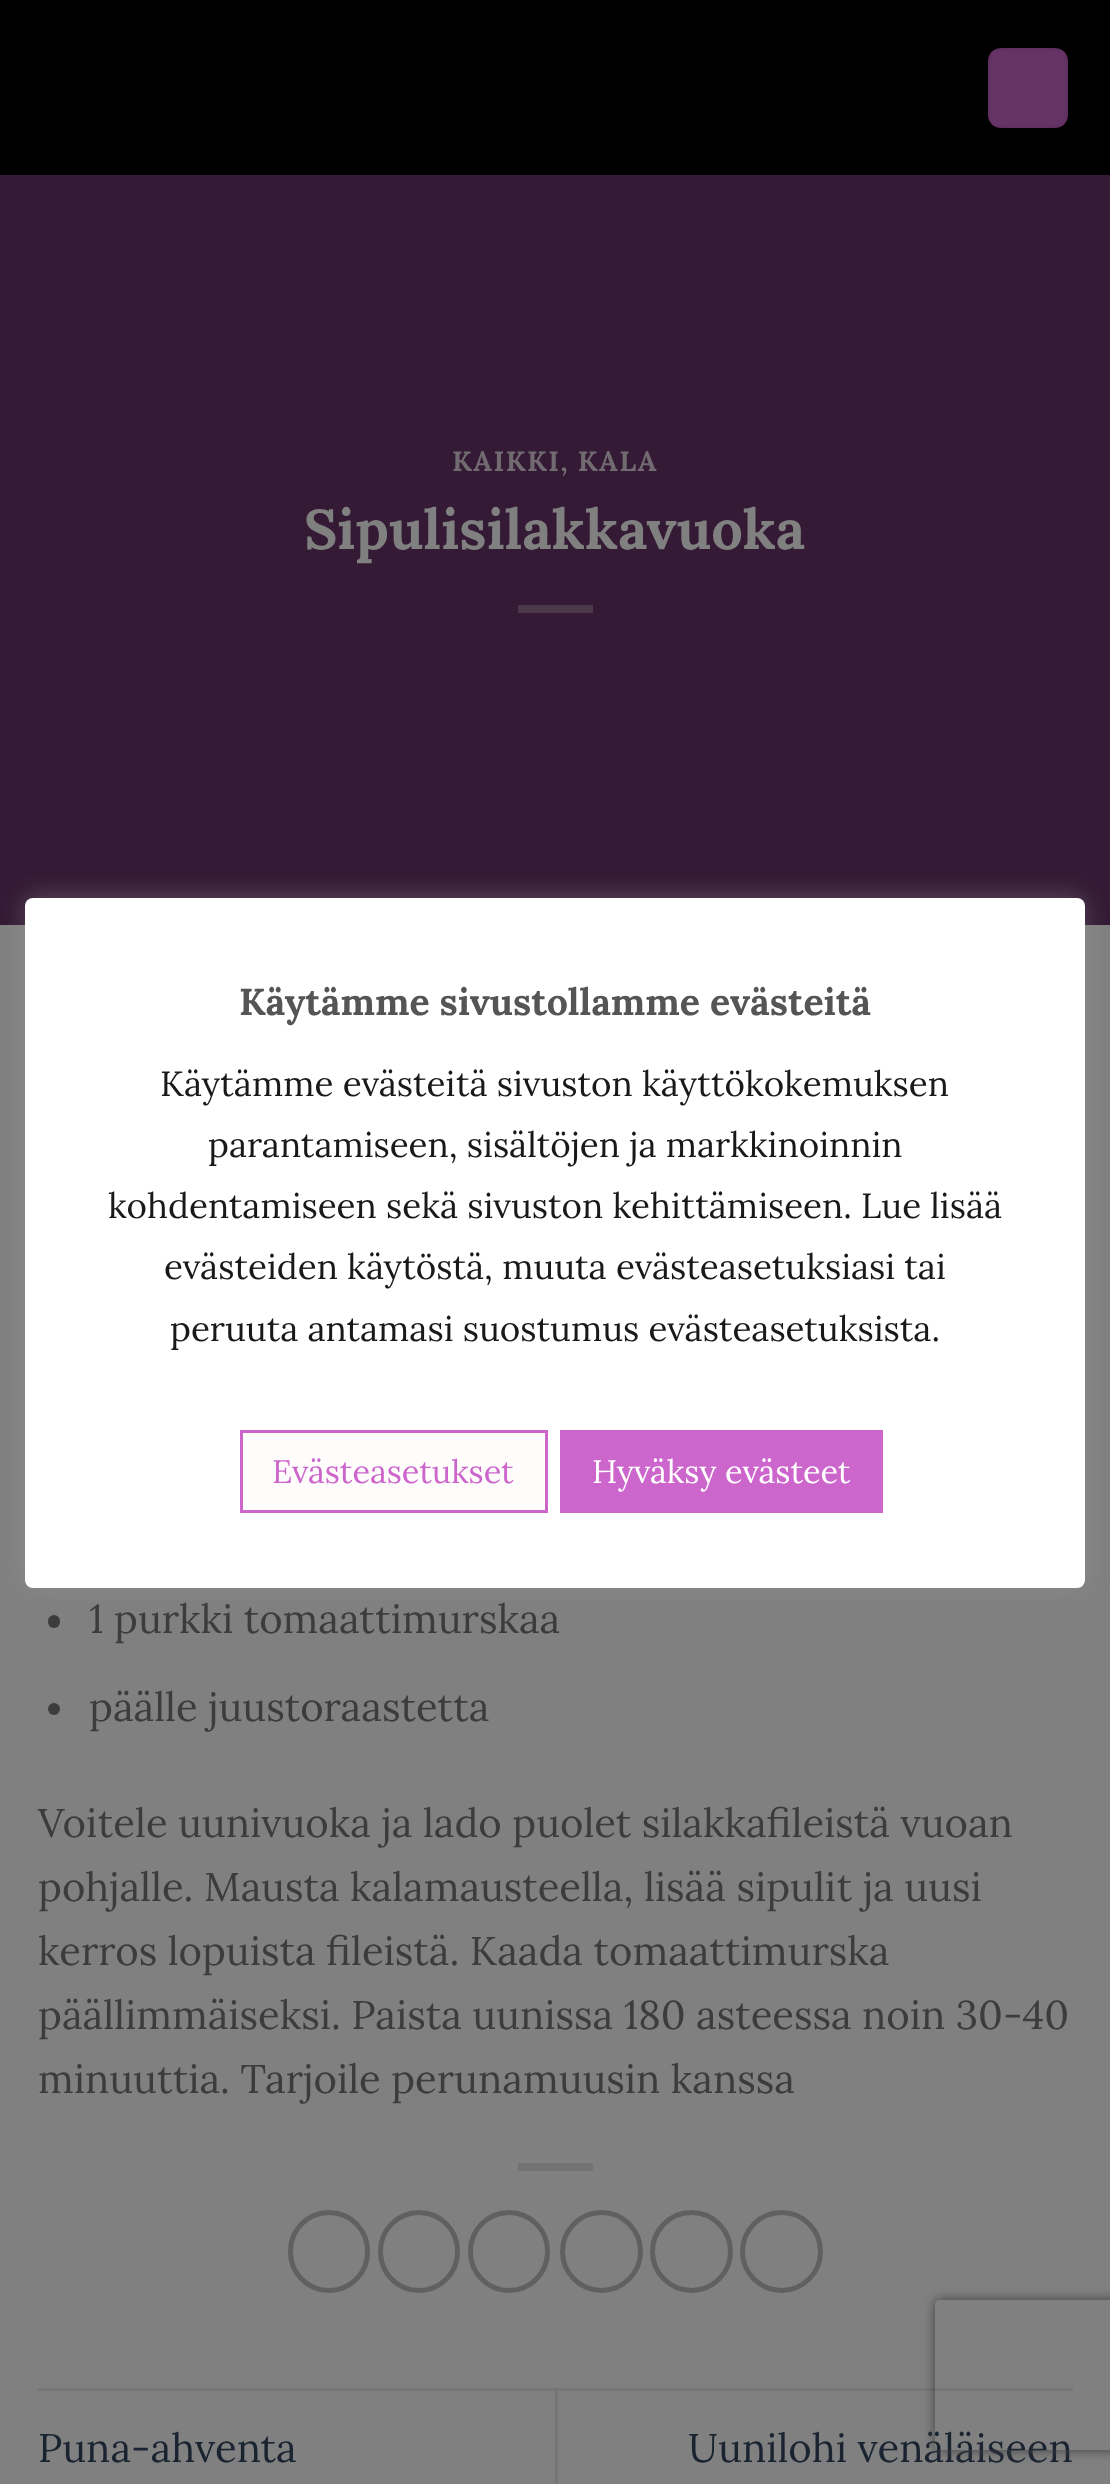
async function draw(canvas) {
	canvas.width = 1110;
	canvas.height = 2484;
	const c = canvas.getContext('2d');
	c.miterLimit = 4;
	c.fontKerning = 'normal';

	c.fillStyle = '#808080';
	c.fillRect(0, 0, 1110, 2484);
	c.fillStyle = '#000';
	c.fillRect(0, 0, 1110, 175);
	c.fillStyle = '#636';
	c.beginPath();
	c.roundRect(988, 48, 80, 80, 13);
	c.fill();
	c.strokeStyle = '#0000000d';
	c.lineWidth = 3;
	c.strokeRect(989.5, 49.5, 77, 77);
	c.fillStyle = '#341a34';
	c.fillRect(0, 175, 1110, 750);
	c.letterSpacing = '1.4px';
	c.font = 'bold 28px Lora';
	c.fillStyle = '#716b71';
	c.fillText('KAIKKI, KALA', 452, 471);
	c.letterSpacing = '0px';
	c.font = 'bold 56px Lora';
	c.fillStyle = '#808080';
	c.fillText('Sipulisilakkavuoka', 304, 549);
	c.fillStyle = '#4b394b';
	c.fillRect(518, 605, 75, 8);
	c.fillStyle = '#3c3c3c';
	c.beginPath();
	c.roundRect(48, 1615, 12, 13, 6);
	c.fill();
	c.font = '40px Lora';
	c.fillText('1 purkki tomaattimurskaa', 89, 1633);
	c.beginPath();
	c.arc(54, 1709, 6, 0, 2 * Math.PI);
	c.fill();
	for (const [text, x, y] of [
		['päälle juustoraastetta', 89, 1721],
		['Voitele uunivuoka ja lado puolet silakkafileistä vuoan', 38, 1837],
		['pohjalle. Mausta kalamausteella, lisää sipulit ja uusi', 38, 1901],
		['kerros lopuista fileistä. Kaada tomaattimurska', 38, 1965],
		['päällimmäiseksi. Paista uunissa 180 asteessa noin 30-40', 38, 2029],
		['minuuttia. Tarjoile perunamuusin kanssa', 38, 2093],
	]) {
		c.fillText(text, x, y);
	}
	c.fillStyle = '#737373';
	c.fillRect(518, 2163, 75, 8);
	c.beginPath();
	c.roundRect(290.5, 2212.5, 77, 78, 38.5);
	c.strokeStyle = '#606060';
	c.lineWidth = 5;
	c.stroke();
	c.beginPath();
	c.roundRect(380.5, 2212.5, 77, 78, 38.5);
	c.stroke();
	c.beginPath();
	c.roundRect(470.5, 2212.5, 77, 78, 38.5);
	c.stroke();
	c.beginPath();
	c.arc(601.5, 2251.5, 39, 0, 2 * Math.PI);
	c.stroke();
	c.beginPath();
	c.arc(691.5, 2251.5, 39, 0, 2 * Math.PI);
	c.stroke();
	c.beginPath();
	c.arc(781.5, 2251.5, 39, 0, 2 * Math.PI);
	c.stroke();
	c.fillStyle = '#767676';
	c.fillRect(38, 2388, 1035, 3);
	c.fillStyle = '#1a2431';
	c.fillText('Puna-ahventa', 38, 2462);
	c.fillStyle = '#767676';
	c.fillRect(555, 2390, 3, 94);
	c.fillStyle = '#1a2431';
	c.fillText('Uunilohi venäläiseen', 688, 2462);
	c.fillStyle = '#acabab4d';
	c.filter = 'blur(12.5px)';
	c.beginPath();
	c.roundRect(25, 895, 1060, 690, 8);
	c.fill();
	c.filter = 'none';
	c.fillStyle = '#fff';
	c.beginPath();
	c.roundRect(25, 898, 1060, 690, 8);
	c.fill();
	c.font = 'bold 37.5px Lora';
	c.fillStyle = '#555';
	c.fillText('Käytämme sivustollamme evästeitä', 239, 1015);
	c.font = '35px Lora';
	c.fillStyle = '#191919';
	for (const [text, x, y] of [
		['Käytämme evästeitä sivuston käyttökokemuksen', 160, 1096],
		['parantamiseen, sisältöjen ja markkinoinnin', 208, 1157],
		['kohdentamiseen sekä sivuston kehittämiseen. Lue lisää', 108, 1218],
		['evästeiden käytöstä, muuta evästeasetuksiasi tai', 164, 1279],
		['peruuta antamasi suostumus evästeasetuksista.', 170, 1341],
	]) {
		c.fillText(text, x, y);
	}
	c.fillStyle = '#fffcfc';
	c.beginPath();
	c.rect(241.5, 1431.5, 305, 80);
	c.fill();
	c.strokeStyle = '#c6c';
	c.lineWidth = 3;
	c.stroke();
	c.font = '32.5px Lora';
	c.fillStyle = '#c6c';
	c.fillText('Evästeasetukset', 272, 1483);
	c.fillRect(560, 1430, 323, 83);
	c.fillStyle = '#fff';
	c.fillText('Hyväksy evästeet', 592, 1483);
	c.save();
	c.beginPath();
	c.moveTo(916, 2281);
	c.lineTo(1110, 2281);
	c.lineTo(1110, 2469);
	c.lineTo(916, 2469);
	c.closePath();
	c.moveTo(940, 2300);
	c.lineTo(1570, 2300);
	c.bezierCurveTo(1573, 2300, 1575, 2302, 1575, 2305);
	c.lineTo(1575, 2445);
	c.bezierCurveTo(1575, 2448, 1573, 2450, 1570, 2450);
	c.lineTo(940, 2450);
	c.bezierCurveTo(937, 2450, 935, 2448, 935, 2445);
	c.lineTo(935, 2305);
	c.bezierCurveTo(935, 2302, 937, 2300, 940, 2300);
	c.closePath();
	c.clip('evenodd');
	c.fillStyle = '#404040';
	c.filter = 'blur(6px)';
	c.beginPath();
	c.roundRect(935, 2300, 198, 150, 5);
	c.fill();
	c.filter = 'none';
	c.restore();
}

draw(document.querySelector('canvas'));
